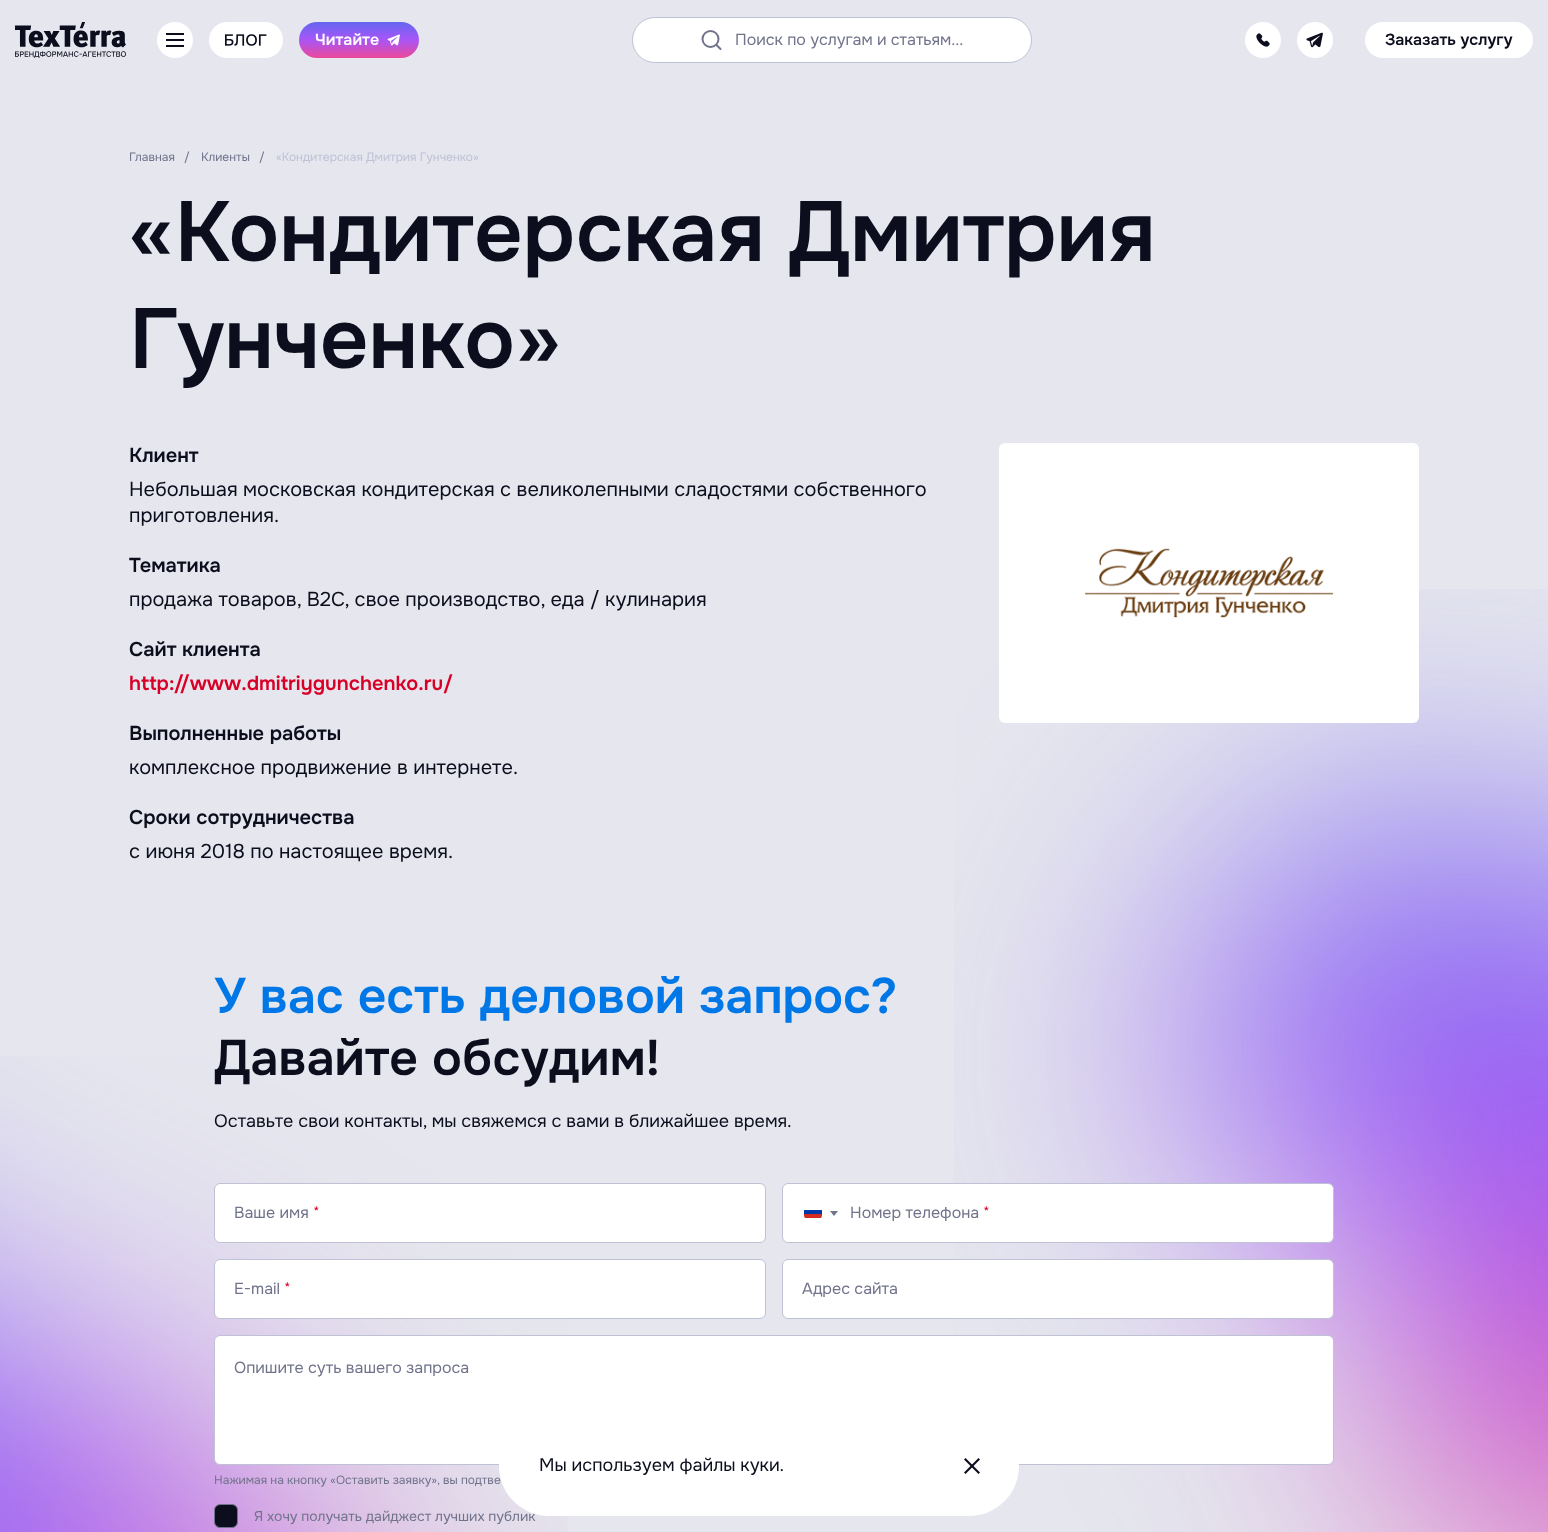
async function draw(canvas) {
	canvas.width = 1548;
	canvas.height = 1532;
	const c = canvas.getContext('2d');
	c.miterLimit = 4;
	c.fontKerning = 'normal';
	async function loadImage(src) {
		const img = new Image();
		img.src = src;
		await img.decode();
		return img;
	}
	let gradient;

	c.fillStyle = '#e5e6ee';
	c.fillRect(0, 0, 1548, 1532);
	c.drawImage(await loadImage('img1.png'), 15, 22, 111, 36);
	c.fillStyle = '#fff';
	c.beginPath();
	c.arc(175, 40, 18, 0, 2 * Math.PI);
	c.fill();
	for (const [x, y, w, h, color] of [
		[166, 33, 18, 2, '#0c0e1d'],
		[166, 39, 18, 2, '#0c0e1d'],
		[166, 45, 18, 2, '#0c0e1d'],
	]) {
		c.fillStyle = color;
		c.fillRect(x, y, w, h);
	}
	c.fillStyle = '#fff';
	c.beginPath();
	c.roundRect(209, 22, 74, 36, 18);
	c.fill();
	c.drawImage(await loadImage('img2.png'), 225, 34, 42, 12);
	gradient = c.createLinearGradient(359, 22, 359, 58);
	gradient.addColorStop(0, '#6366f1');
	gradient.addColorStop(0.49, '#a855f7');
	gradient.addColorStop(1, '#ec4899');
	c.fillStyle = gradient;
	c.beginPath();
	c.roundRect(299, 22, 120, 36, 18);
	c.fill();
	c.font = '600 16px Onest';
	c.fillStyle = '#fff';
	c.fillText('Читайте', 315, 45);
	c.drawImage(await loadImage('img3.png'), 387, 34, 13, 12);
	c.beginPath();
	c.roundRect(632.5, 17.5, 399, 45, 22.5);
	c.fill();
	c.strokeStyle = '#bfc2d4';
	c.stroke();
	c.beginPath();
	c.arc(710.5, 39, 8, 0, 2 * Math.PI);
	c.strokeStyle = '#70738b';
	c.lineWidth = 2;
	c.stroke();
	c.beginPath();
	c.moveTo(716.5, 45);
	c.lineTo(720.5, 49);
	c.lineCap = 'round';
	c.lineJoin = 'round';
	c.stroke();
	c.font = '16px Onest';
	c.fillStyle = '#70738b';
	c.fillText('Поиск по услугам и статьям...', 735, 45);
	c.fillStyle = '#fff';
	c.beginPath();
	c.arc(1263, 40, 18, 0, 2 * Math.PI);
	c.fill();
	c.drawImage(await loadImage('img4.png'), 1256, 33, 14, 14);
	c.beginPath();
	c.arc(1315, 40, 18, 0, 2 * Math.PI);
	c.fill();
	c.drawImage(await loadImage('img5.png'), 1306, 32, 17, 16);
	c.beginPath();
	c.roundRect(1365, 22, 168, 36, 18);
	c.fill();
	c.font = '600 16px Onest';
	c.fillStyle = '#0c0e1d';
	c.fillText('Заказать услугу', 1385, 45);
	c.font = '12px Onest';
	c.fillStyle = '#70738b';
	for (const [text, x, y] of [
		['Главная', 129, 161],
		['/', 184, 161],
		['Клиенты', 201, 161],
		['/', 259, 161],
	]) {
		c.fillText(text, x, y);
	}
	c.fillStyle = '#bfc2d4';
	c.fillText('«Кондитерская Дмитрия Гунченко»', 276, 161);
	c.font = '600 85px Onest';
	c.fillStyle = '#0c0e1d';
	c.fillText('«Кондитерская Дмитрия', 129, 261);
	c.fillText('Гунченко»', 129, 368);
	c.font = '600 20px Onest';
	c.fillText('Клиент', 129, 462);
	c.font = '20px Onest';
	c.fillText('Небольшая московская кондитерская с великолепными сладостями собственного', 129, 496);
	c.fillText('приготовления.', 129, 522);
	c.font = '600 20px Onest';
	c.fillText('Тематика', 129, 572);
	c.font = '20px Onest';
	c.fillText('продажа товаров, B2C, свое производство, еда / кулинария', 129, 606);
	c.font = '600 20px Onest';
	c.fillText('Сайт клиента', 129, 656);
	c.fillStyle = '#d90027';
	c.fillText('http://www.dmitriygunchenko.ru/', 129, 690);
	c.fillStyle = '#0c0e1d';
	c.fillText('Выполненные работы', 129, 740);
	c.font = '20px Onest';
	c.fillText('комплексное продвижение в интернете.', 129, 774);
	c.font = '600 20px Onest';
	c.fillText('Сроки сотрудничества', 129, 824);
	c.font = '20px Onest';
	c.fillText('с июня 2018 по настоящее время.', 129, 858);
	c.drawImage(await loadImage('img8.png'), 954, 589, 594, 943);
	c.fillStyle = '#fff';
	c.beginPath();
	c.roundRect(999, 443, 420, 280, 6);
	c.fill();
	c.drawImage(await loadImage('img6.png'), 1085, 548, 248, 70);
	c.font = '600 50px Onest';
	c.fillStyle = '#0077e6';
	c.fillText('У вас есть деловой запрос?', 214, 1013);
	c.drawImage(await loadImage('img9.png'), 0, 1056, 568, 476);
	c.fillStyle = '#0c0e1d';
	c.fillText('Давайте обсудим!', 214, 1075);
	c.font = '18px Onest';
	c.fillText('Оставьте свои контакты, мы свяжемся с вами в ближайшее время.', 214, 1127);
	c.fillStyle = '#fff';
	c.beginPath();
	c.roundRect(214.5, 1183.5, 551, 59, 5.5);
	c.fill();
	c.strokeStyle = '#bfc2d4';
	c.lineWidth = 1;
	c.lineJoin = 'miter';
	c.stroke();
	c.font = '16px Onest';
	c.fillStyle = '#70738b';
	c.fillText('Ваше имя', 234, 1218);
	c.fillStyle = '#d90027';
	c.fillText('*', 313, 1218);
	c.fillStyle = '#fff';
	c.beginPath();
	c.roundRect(782.5, 1183.5, 551, 59, 5.5);
	c.fill();
	c.stroke();
	c.drawImage(await loadImage('img7.png'), 804, 1210, 18, 8);
	c.fillStyle = '#70738b';
	c.beginPath();
	c.moveTo(830, 1211);
	c.lineTo(838, 1211);
	c.lineTo(834, 1216);
	c.closePath();
	c.fill();
	c.fillText('Номер телефона', 850, 1218);
	c.fillStyle = '#d90027';
	c.fillText('*', 983, 1218);
	c.fillStyle = '#fff';
	c.beginPath();
	c.roundRect(214.5, 1259.5, 551, 59, 5.5);
	c.fill();
	c.stroke();
	c.fillStyle = '#70738b';
	c.fillText('E-mail', 234, 1294);
	c.fillStyle = '#d90027';
	c.fillText('*', 284, 1294);
	c.fillStyle = '#fff';
	c.beginPath();
	c.roundRect(782.5, 1259.5, 551, 59, 5.5);
	c.fill();
	c.stroke();
	c.fillStyle = '#70738b';
	c.fillText('Адрес сайта', 802, 1294);
	c.fillStyle = '#fff';
	c.beginPath();
	c.roundRect(214.5, 1335.5, 1119, 129, 5.5);
	c.fill();
	c.stroke();
	c.fillStyle = '#70738b';
	c.fillText('Опишите суть вашего запроса', 234, 1373);
	c.font = '12px Onest';
	c.fillText('Нажимая на кнопку «Оставить заявку», вы подтве', 214, 1484);
	c.fillStyle = '#0c0e1d';
	c.beginPath();
	c.roundRect(214.5, 1504.5, 23, 23, 5.5);
	c.fill();
	c.strokeStyle = '#70738b';
	c.stroke();
	c.font = '14px Onest';
	c.fillStyle = '#70738b';
	c.fillText('Я хочу получать дайджест лучших публик', 254, 1521);
	c.fillStyle = '#fff';
	c.beginPath();
	c.roundRect(499, 1416, 520, 100, 50);
	c.fill();
	c.font = '18px Onest';
	c.fillStyle = '#0c0e1d';
	c.fillText('Мы используем файлы куки.', 539, 1471);
	c.beginPath();
	c.moveTo(965.5, 1458);
	c.lineTo(980, 1472.5);
	c.lineTo(978.5, 1474);
	c.lineTo(964, 1459.5);
	c.closePath();
	c.fill();
	c.beginPath();
	c.moveTo(964, 1472.5);
	c.lineTo(978.5, 1458);
	c.lineTo(980, 1459.5);
	c.lineTo(965.5, 1474);
	c.closePath();
	c.fill();
}

draw(document.querySelector('canvas'));
